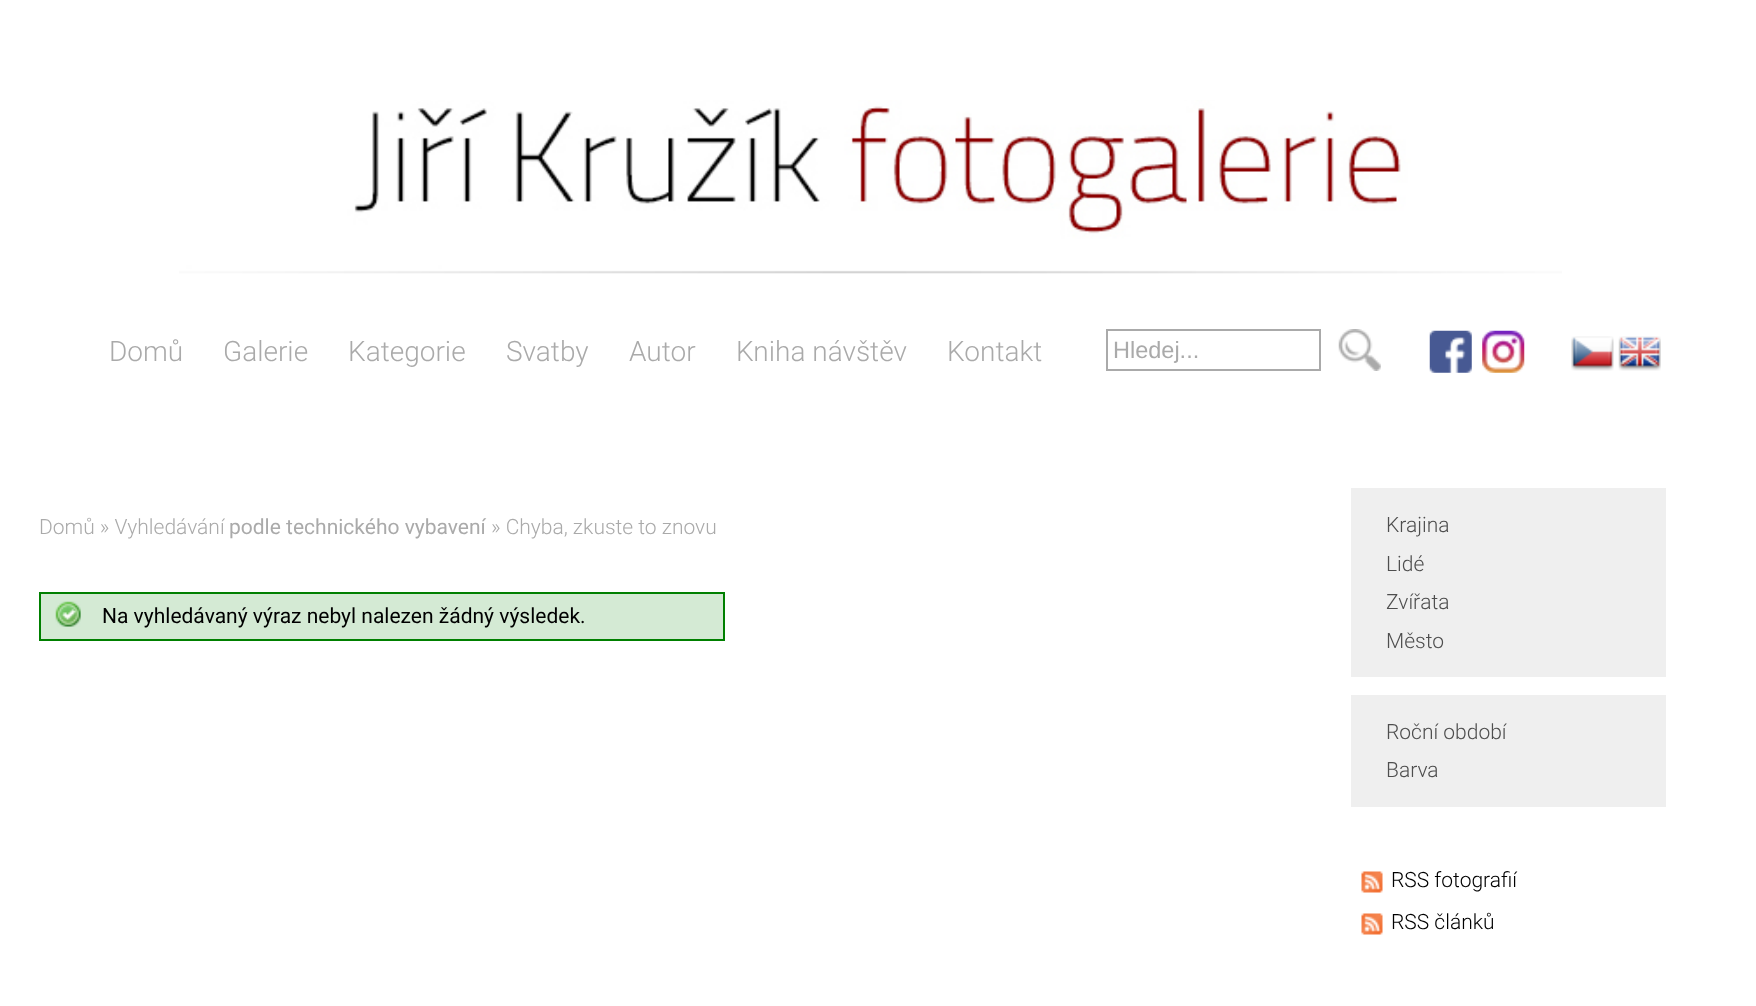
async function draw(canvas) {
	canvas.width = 1756;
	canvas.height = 1006;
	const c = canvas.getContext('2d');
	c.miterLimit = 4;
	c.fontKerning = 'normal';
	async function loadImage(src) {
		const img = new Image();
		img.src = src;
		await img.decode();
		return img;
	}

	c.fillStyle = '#fff';
	c.fillRect(0, 0, 1756, 1006);
	c.drawImage(await loadImage('img1.png'), 1429, 330, 43, 43);
	c.drawImage(await loadImage('img2.png'), 1482, 330, 43, 43);
	c.drawImage(await loadImage('img3.png'), 1571, 336, 43, 35);
	c.drawImage(await loadImage('img4.png'), 1618, 336, 43, 35);
	c.drawImage(await loadImage('img5.png'), 179, 100, 1383, 174);
	c.font = '300 28px Roboto';
	c.fillStyle = '#aaa';
	for (const [text, x, y] of [
		['Domů', 109, 361],
		['Galerie', 223, 361],
		['Kategorie', 348, 361],
		['Svatby', 506, 361],
		['Autor', 629, 361],
		['Kniha návštěv', 736, 361],
		['Kontakt', 947, 361],
	]) {
		c.fillText(text, x, y);
	}
	c.strokeStyle = '#aaa';
	c.lineWidth = 2;
	c.strokeRect(1107, 330, 213, 40);
	c.font = '23.5px Liberation Sans';
	c.fillText('Hledej...', 1113, 358);
	c.drawImage(await loadImage('img6.png'), 1338, 329, 43, 42);
	c.font = '300 21px Roboto';
	c.fillText('Domů » Vyhledávání', 39, 534);
	c.font = '21px Roboto';
	c.fillText('podle technického vybavení', 229, 534);
	c.font = '300 21px Roboto';
	c.fillText('» Chyba, zkuste to znovu', 491, 534);
	c.fillStyle = '#d4ead4';
	c.fillRect(41, 594, 682, 45);
	c.drawImage(await loadImage('img7.png'), 55, 601, 26, 26);
	c.strokeStyle = '#008000';
	c.strokeRect(40, 593, 684, 47);
	c.font = '21px Roboto';
	c.fillStyle = '#000';
	c.fillText('Na vyhledávaný výraz nebyl nalezen žádný výsledek.', 102, 623);
	c.fillStyle = '#efefef';
	c.fillRect(1351, 488, 315, 189);
	c.font = '300 21px Roboto';
	c.fillStyle = '#4e4e4e';
	for (const [text, x, y] of [
		['Krajina', 1386, 532],
		['Lidé', 1386, 571],
		['Zvířata', 1386, 609],
		['Město', 1386, 648],
	]) {
		c.fillText(text, x, y);
	}
	c.fillStyle = '#efefef';
	c.fillRect(1351, 695, 315, 112);
	c.fillStyle = '#4e4e4e';
	c.fillText('Roční období', 1386, 739);
	c.fillText('Barva', 1386, 777);
	c.drawImage(await loadImage('img8.png'), 1361, 871, 22, 22);
	c.fillStyle = '#000';
	c.fillText('RSS fotografií', 1391, 887);
	c.drawImage(await loadImage('img8.png'), 1361, 913, 22, 22);
	c.fillText('RSS článků', 1391, 929);
}

draw(document.querySelector('canvas'));
